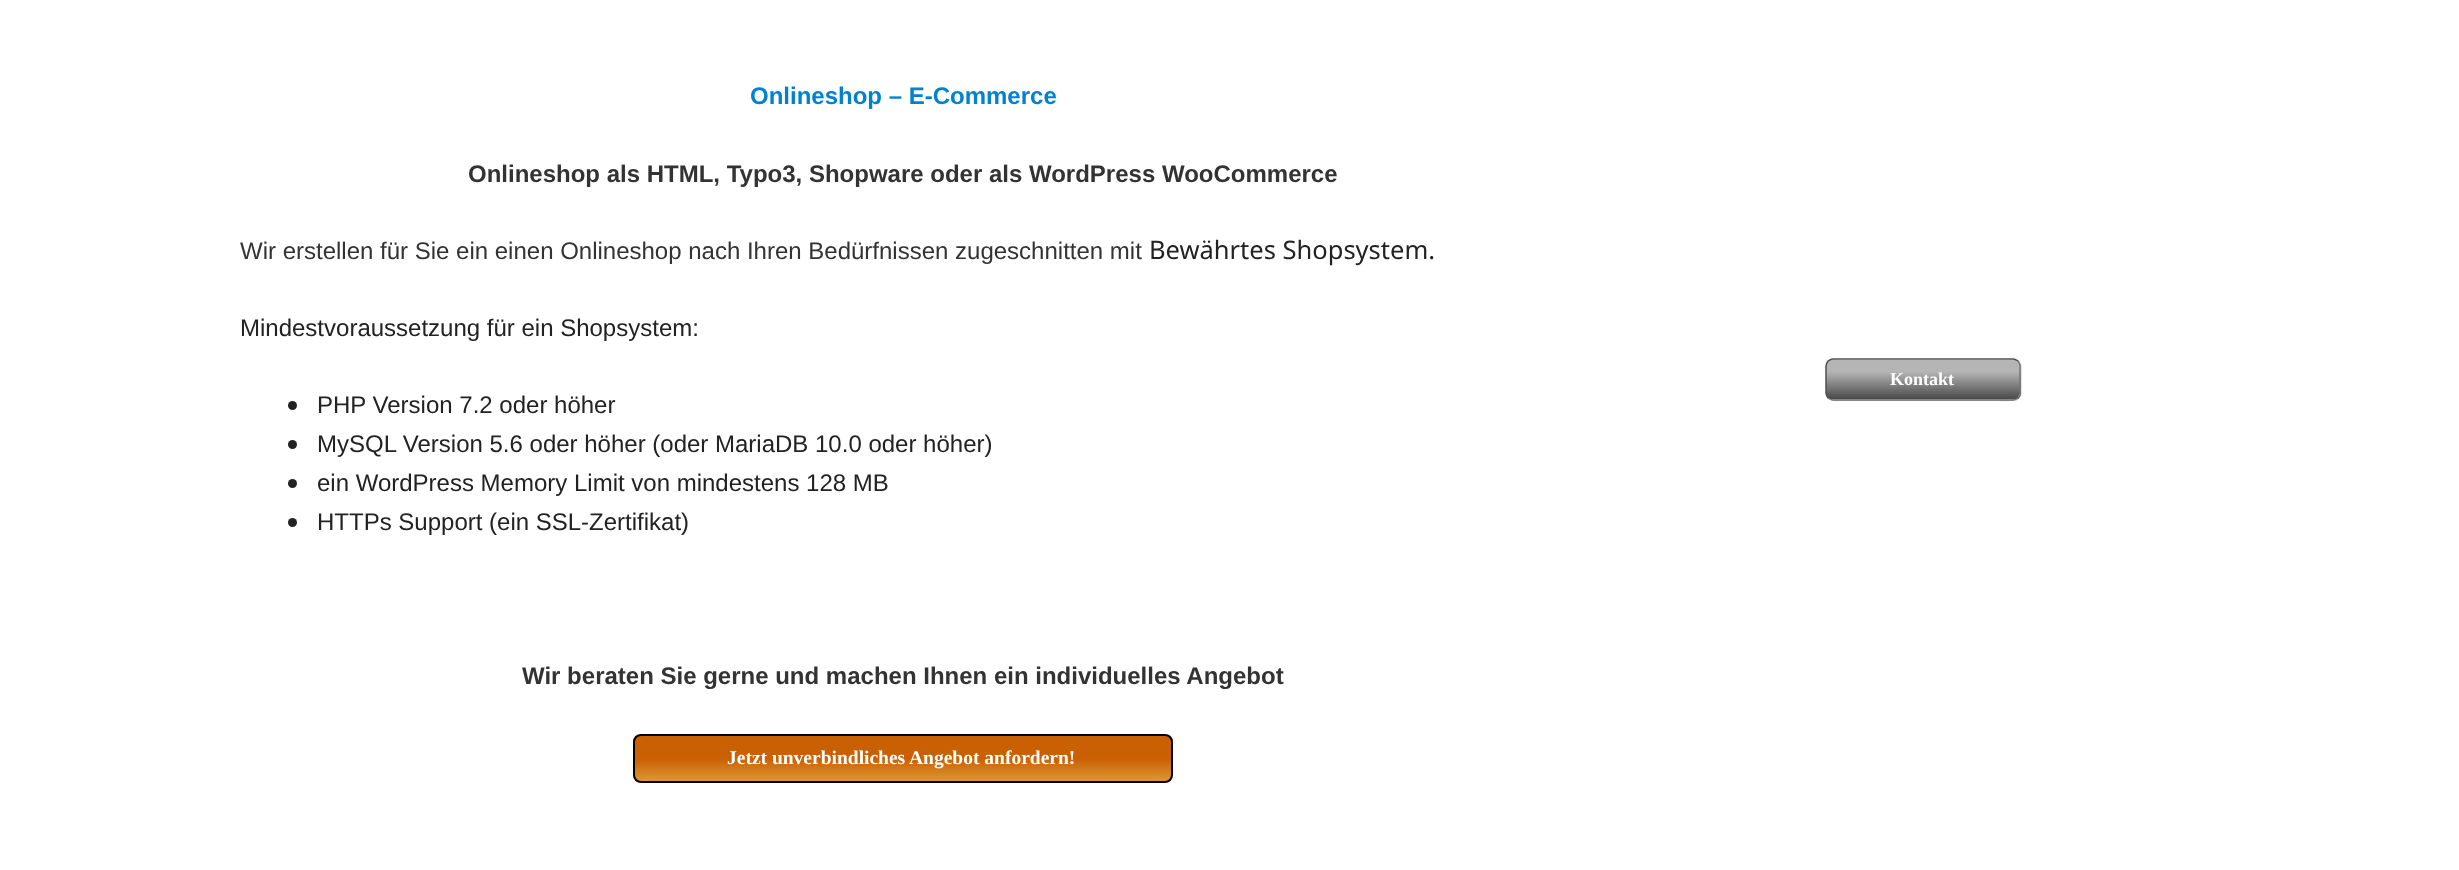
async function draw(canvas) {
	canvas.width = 2459;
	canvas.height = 870;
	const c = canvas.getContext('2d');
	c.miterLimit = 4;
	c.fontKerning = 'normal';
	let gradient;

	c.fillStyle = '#fff';
	c.fillRect(0, 0, 2459, 870);
	c.font = 'bold 24px Liberation Sans';
	c.fillStyle = '#0082ce';
	c.fillText('Onlineshop – E-Commerce', 750, 104);
	c.fillStyle = '#333';
	c.fillText('Onlineshop als HTML, Typo3, Shopware oder als WordPress WooCommerce', 468, 182);
	c.font = '24px Liberation Sans';
	c.fillText('Wir erstellen für Sie ein einen Onlineshop nach Ihren Bedürfnissen zugeschnitten mit', 240, 259);
	c.font = '25.5px Noto Sans';
	c.fillStyle = '#222';
	c.fillText('Bewährtes Shopsystem.', 1149, 259);
	c.font = '24px Liberation Sans';
	c.fillText('Mindestvoraussetzung für ein Shopsystem:', 240, 336);
	c.beginPath();
	c.arc(292.5, 405.5, 4.5, 0, 2 * Math.PI);
	c.fill();
	c.fillText('PHP Version 7.2 oder höher', 317, 413);
	c.beginPath();
	c.arc(292.5, 444.5, 4.5, 0, 2 * Math.PI);
	c.fill();
	c.fillText('MySQL Version 5.6 oder höher (oder MariaDB 10.0 oder höher)', 317, 452);
	c.beginPath();
	c.arc(292.5, 483.5, 4.5, 0, 2 * Math.PI);
	c.fill();
	c.fillText('ein WordPress Memory Limit von mindestens 128 MB', 317, 491);
	c.beginPath();
	c.arc(292.5, 522.5, 4.5, 0, 2 * Math.PI);
	c.fill();
	c.fillText('HTTPs Support (ein SSL-Zertifikat)', 317, 530);
	c.font = 'bold 24px Liberation Sans';
	c.fillStyle = '#333';
	c.fillText('Wir beraten Sie gerne und machen Ihnen ein individuelles Angebot', 522, 684);
	c.save();
	c.beginPath();
	c.roundRect(633, 734, 540, 49, 8);
	c.clip();
	gradient = c.createLinearGradient(903, 735, 903, 782);
	gradient.addColorStop(0.5, '#c96004');
	gradient.addColorStop(1, '#d93');
	c.fillStyle = gradient;
	c.fillRect(633, 735, 540, 47);
	c.restore();
	c.beginPath();
	c.roundRect(634, 735, 538, 47, 7);
	c.strokeStyle = '#000';
	c.lineWidth = 2;
	c.stroke();
	c.font = 'bold 19.5px Liberation Serif';
	c.fillStyle = '#fff';
	c.fillText('Jetzt unverbindliches Angebot anfordern!', 727, 764);
	c.fillStyle = '#e2e2e2';
	c.beginPath();
	c.moveTo(1832, 400);
	c.lineTo(1835, 401);
	c.lineTo(2014, 401);
	c.bezierCurveTo(2018, 401, 2022, 397, 2022, 393);
	c.lineTo(2022, 376);
	c.bezierCurveTo(2022, 370, 2024, 362, 2017, 359);
	c.bezierCurveTo(2022, 363, 2020, 370, 2020, 375);
	c.lineTo(2020, 393);
	c.bezierCurveTo(2020, 406, 1997, 400, 1983, 400);
	c.closePath();
	c.fill();
	c.save();
	c.beginPath();
	c.roundRect(1826, 359, 195, 42, 8);
	c.clip();
	gradient = c.createLinearGradient(1923, 360, 1923, 399);
	gradient.addColorStop(0.3, '#b5b5b5');
	gradient.addColorStop(1, '#494949');
	c.fillStyle = gradient;
	c.fillRect(1826, 360, 195, 39);
	gradient = c.createLinearGradient(1923, 399, 1923, 438);
	gradient.addColorStop(0.3, '#b5b5b5');
	gradient.addColorStop(1, '#494949');
	c.fillStyle = gradient;
	c.fillRect(1826, 399, 195, 2);
	c.restore();
	c.beginPath();
	c.moveTo(2018, 361);
	c.bezierCurveTo(2019, 362.5, 2020, 364, 2020, 366);
	c.lineTo(2020, 393);
	c.bezierCurveTo(2020, 395, 2019, 396.5, 2018, 398);
	c.bezierCurveTo(2016.5, 399, 2015, 400, 2013, 400);
	c.lineTo(1833, 400);
	c.bezierCurveTo(1831, 400, 1829.5, 399, 1828, 398);
	c.strokeStyle = '#777';
	c.lineWidth = 1.5;
	c.stroke();
	c.beginPath();
	c.moveTo(1828, 398);
	c.bezierCurveTo(1827, 396.5, 1826, 395, 1826, 393);
	c.lineTo(1826, 366);
	c.bezierCurveTo(1826, 364, 1827, 362.5, 1828, 361);
	c.bezierCurveTo(1829.5, 360, 1831, 359, 1833, 359);
	c.lineTo(2013, 359);
	c.bezierCurveTo(2015, 359, 2016.5, 360, 2018, 361);
	c.strokeStyle = '#4f4f4f';
	c.stroke();
	c.font = 'bold 18px Liberation Serif';
	c.fillStyle = '#fff';
	c.fillText('Kontakt', 1890, 385);
}

draw(document.querySelector('canvas'));
